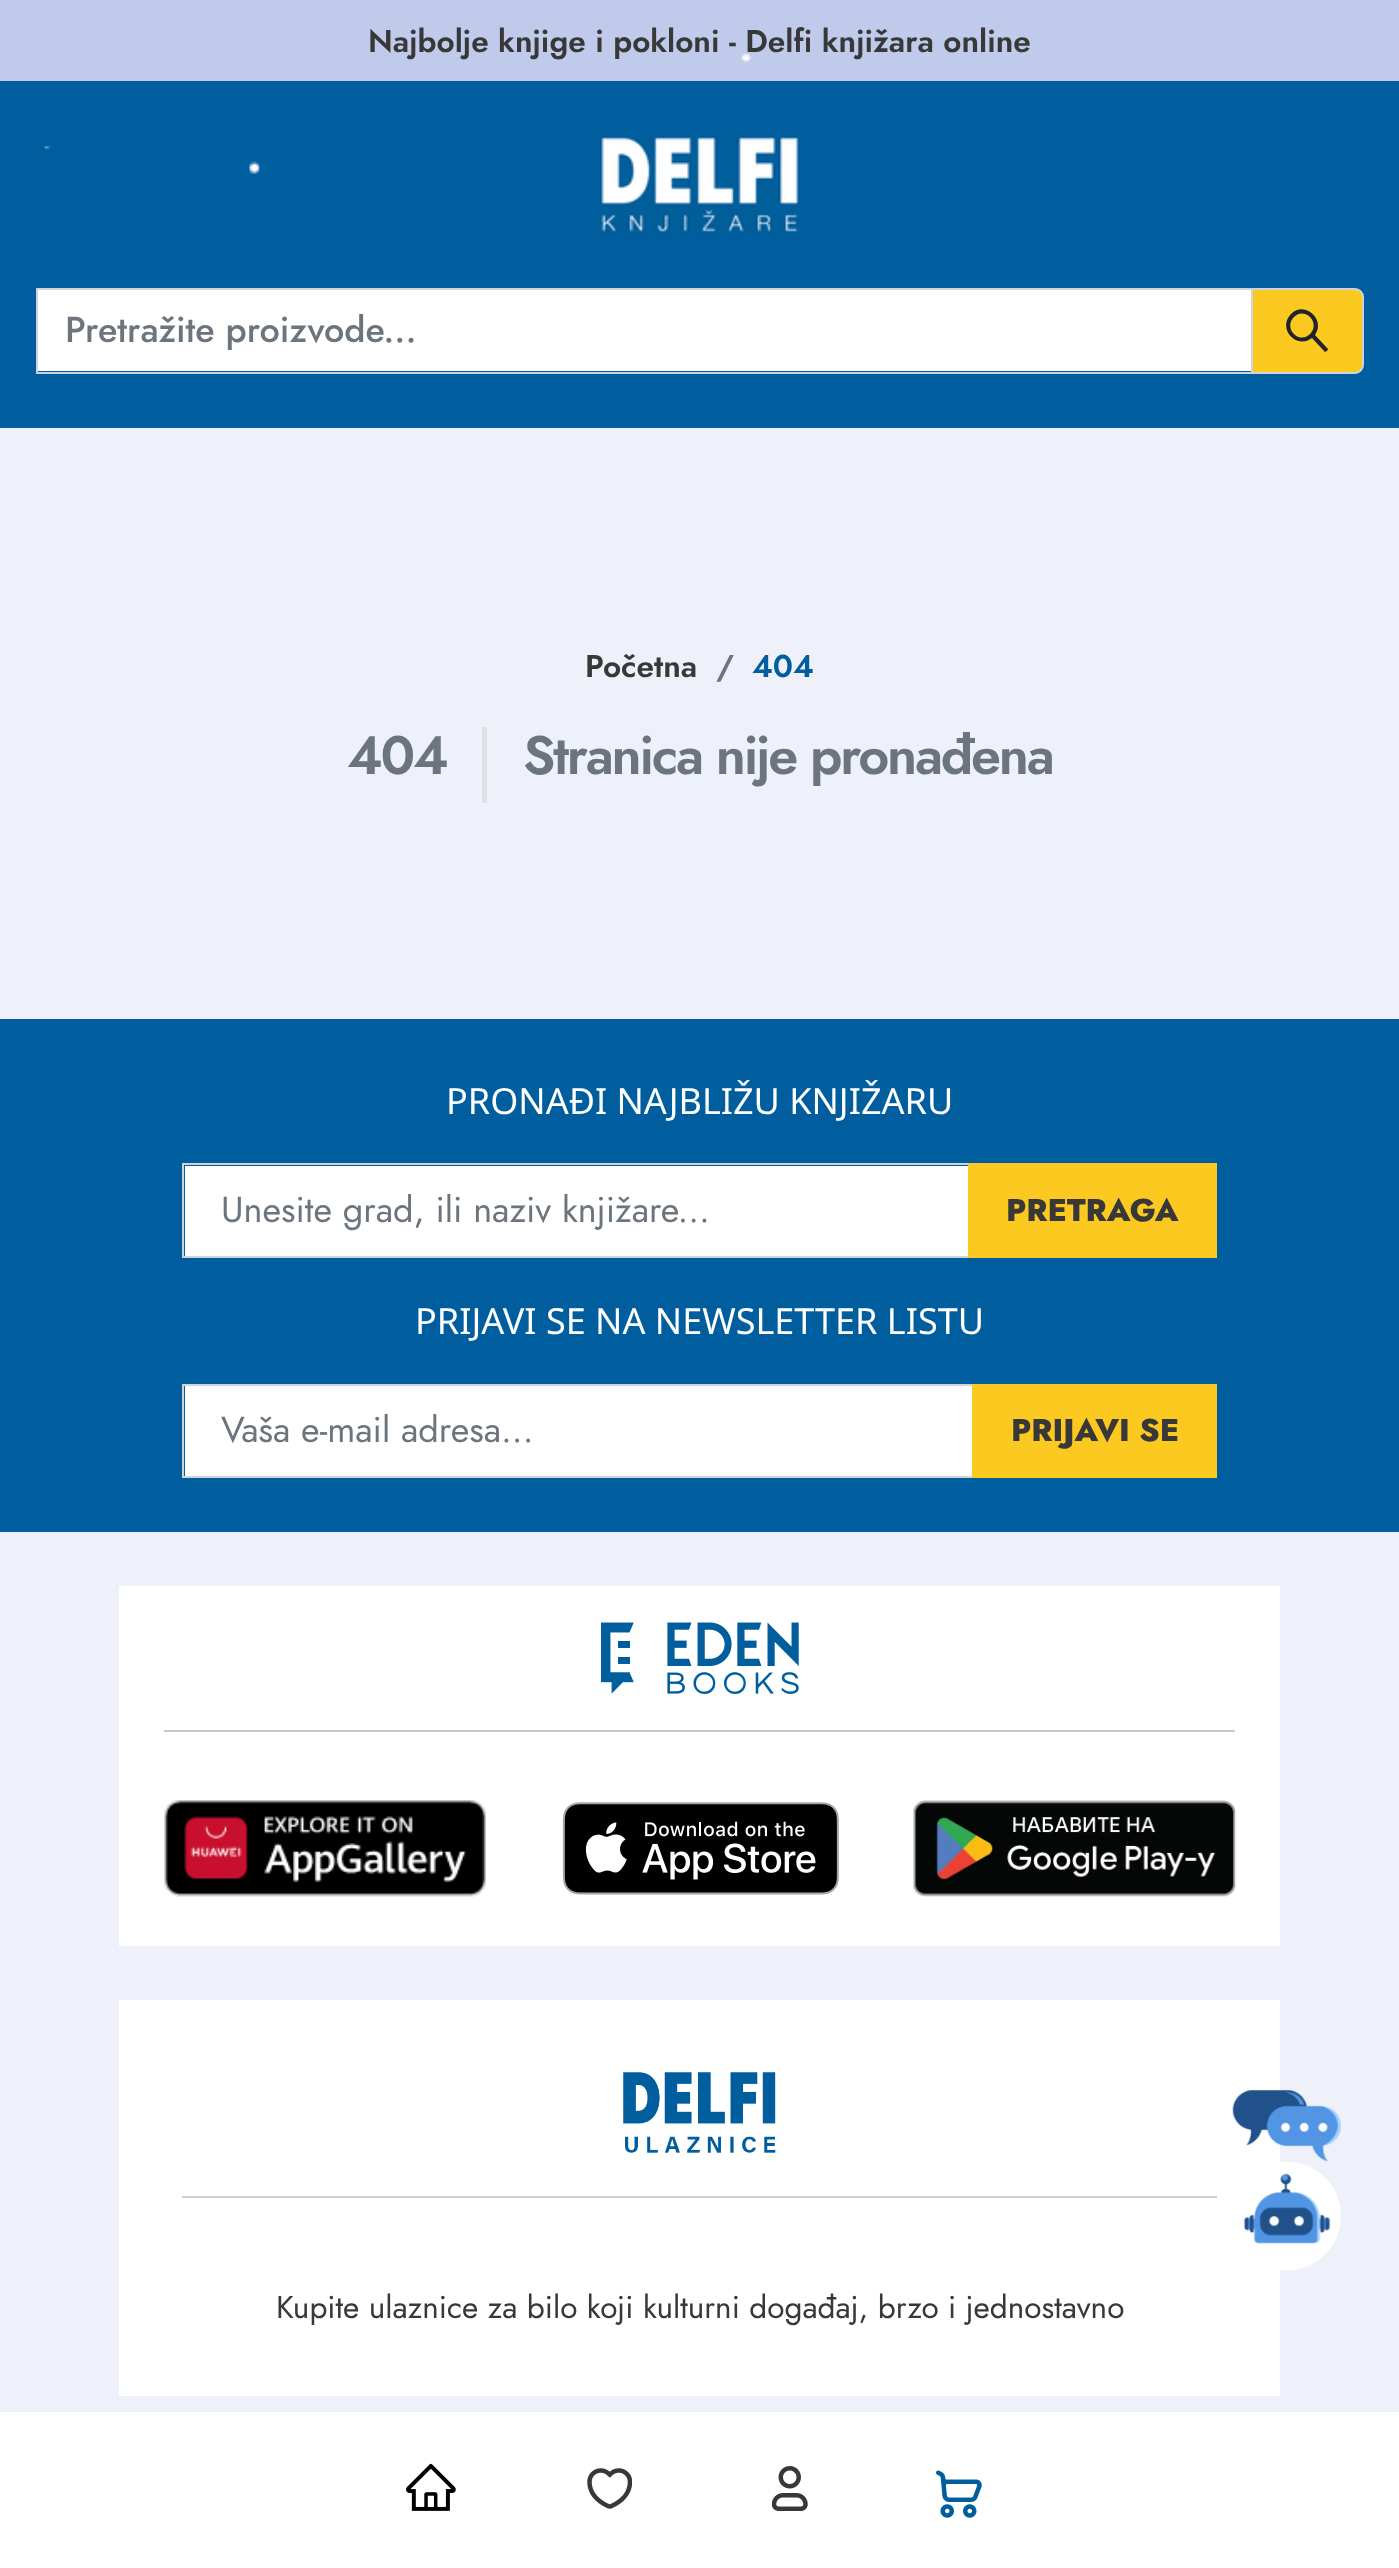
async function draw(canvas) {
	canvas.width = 1399;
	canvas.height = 2568;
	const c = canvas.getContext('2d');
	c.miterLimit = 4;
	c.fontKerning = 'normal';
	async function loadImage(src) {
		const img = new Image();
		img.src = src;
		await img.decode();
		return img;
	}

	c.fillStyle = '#eff1fa';
	c.fillRect(0, 0, 1399, 2568);
	c.fillStyle = '#c0caeb';
	c.fillRect(0, 0, 1399, 81);
	c.font = '600 31.5px Jost';
	c.fillStyle = '#383838';
	c.fillText('Najbolje knjige i pokloni - Delfi knjižara online', 368, 52);
	c.fillStyle = '#005e9e';
	c.fillRect(0, 81, 1399, 347);
	c.drawImage(await loadImage('img1.png'), 600, 136, 200, 97);
	c.fillStyle = '#fff';
	c.fillRect(38, 290, 1213, 81);
	c.fillStyle = '#fbc920';
	c.beginPath();
	c.roundRect(1252, 289, 111, 84, [0, 8, 8, 0]);
	c.fill();
	c.strokeStyle = '#ced4da';
	c.lineWidth = 2;
	c.stroke();
	c.strokeRect(37, 289, 1215, 84);
	c.font = '500 36px Jost';
	c.fillStyle = '#6c757d';
	c.fillText('Pretražite proizvode...', 65, 342);
	c.fillStyle = '#212529';
	c.beginPath();
	c.moveTo(1328, 349);
	c.lineTo(1315, 335);
	c.bezierCurveTo(1326, 320, 1305, 300, 1291, 314);
	c.bezierCurveTo(1277, 328, 1296, 350, 1312, 338);
	c.lineTo(1325, 352);
	c.bezierCurveTo(1326, 352, 1329, 349, 1328, 349);
	c.closePath();
	c.moveTo(1310, 334);
	c.bezierCurveTo(1299, 345, 1283, 328, 1294, 317);
	c.bezierCurveTo(1305, 306, 1321, 323, 1310, 334);
	c.closePath();
	c.fill();
	c.fillStyle = '#fff';
	c.fillRect(0, 2412, 1399, 156);
	c.drawImage(await loadImage('img2.png'), 406, 2463, 50, 48);
	c.drawImage(await loadImage('img3.png'), 587, 2468, 45, 41);
	c.drawImage(await loadImage('img4.png'), 772, 2466, 36, 45);
	c.drawImage(await loadImage('img5.png'), 936, 2470, 46, 48);
	c.font = '600 31.5px Jost';
	c.fillStyle = '#383838';
	c.fillText('Početna', 585, 677);
	c.fillStyle = '#6c757d';
	c.fillText('/', 716, 677);
	c.fillStyle = '#005e9e';
	c.fillText('404', 752, 677);
	c.fillStyle = '#dee2e6';
	c.fillRect(482, 727, 5, 76);
	c.letterSpacing = '-2.25px';
	c.font = '600 54px Jost';
	c.fillStyle = '#6c757d';
	c.fillText('404', 347, 774);
	c.fillText('Stranica nije pronađena', 523, 774);
	c.fillStyle = '#005e9e';
	c.fillRect(0, 1019, 1399, 513);
	c.letterSpacing = '0px';
	c.font = '36px Noto Sans';
	c.fillStyle = '#fff';
	c.fillText('PRONAĐI NAJBLIŽU KNJIŽARU', 446, 1114);
	c.fillRect(185, 1166, 783, 90);
	c.strokeRect(183, 1164, 786, 93);
	c.font = '36px Jost';
	c.fillStyle = '#6c757d';
	c.fillText('Unesite grad, ili naziv knjižare...', 221, 1222);
	c.fillStyle = '#fbc920';
	c.fillRect(968, 1163, 249, 95);
	c.font = '800 31.5px Jost';
	c.fillStyle = '#383838';
	c.fillText('PRETRAGA', 1006, 1221);
	c.font = '36px Noto Sans';
	c.fillStyle = '#fff';
	c.fillText('PRIJAVI SE NA NEWSLETTER LISTU', 415, 1334);
	c.fillRect(185, 1386, 787, 90);
	c.strokeRect(183, 1385, 790, 92);
	c.font = '36px Jost';
	c.fillStyle = '#6c757d';
	c.fillText('Vaša e-mail adresa...', 221, 1442);
	c.fillStyle = '#fbc920';
	c.fillRect(972, 1384, 245, 94);
	c.font = '800 31.5px Jost';
	c.fillStyle = '#383838';
	c.fillText('PRIJAVI SE', 1011, 1441);
	c.fillStyle = '#fff';
	c.fillRect(119, 2000, 1161, 396);
	c.drawImage(await loadImage('img6.png'), 1232, 2090, 109, 181);
	c.fillRect(119, 1586, 1161, 360);
	c.drawImage(await loadImage('img7.png'), 601, 1622, 198, 72);
	c.fillStyle = '#c8c9ca';
	c.fillRect(164, 1730, 1071, 2);
	c.drawImage(await loadImage('img8.png'), 164, 1800, 322, 97);
	c.drawImage(await loadImage('img9.png'), 562, 1802, 277, 93);
	c.drawImage(await loadImage('img10.png'), 913, 1800, 323, 97);
	c.drawImage(await loadImage('img11.png'), 623, 2072, 153, 81);
	c.fillStyle = '#cdcdcd';
	c.fillRect(182, 2196, 1035, 2);
	c.font = '31.5px Jost';
	c.fillStyle = '#383838';
	c.fillText('Kupite ulaznice za bilo koji kulturni događaj, brzo i jednostavno', 276, 2318);
	c.drawImage(await loadImage('img12.png'), 44, 53, 708, 121);
}

draw(document.querySelector('canvas'));
